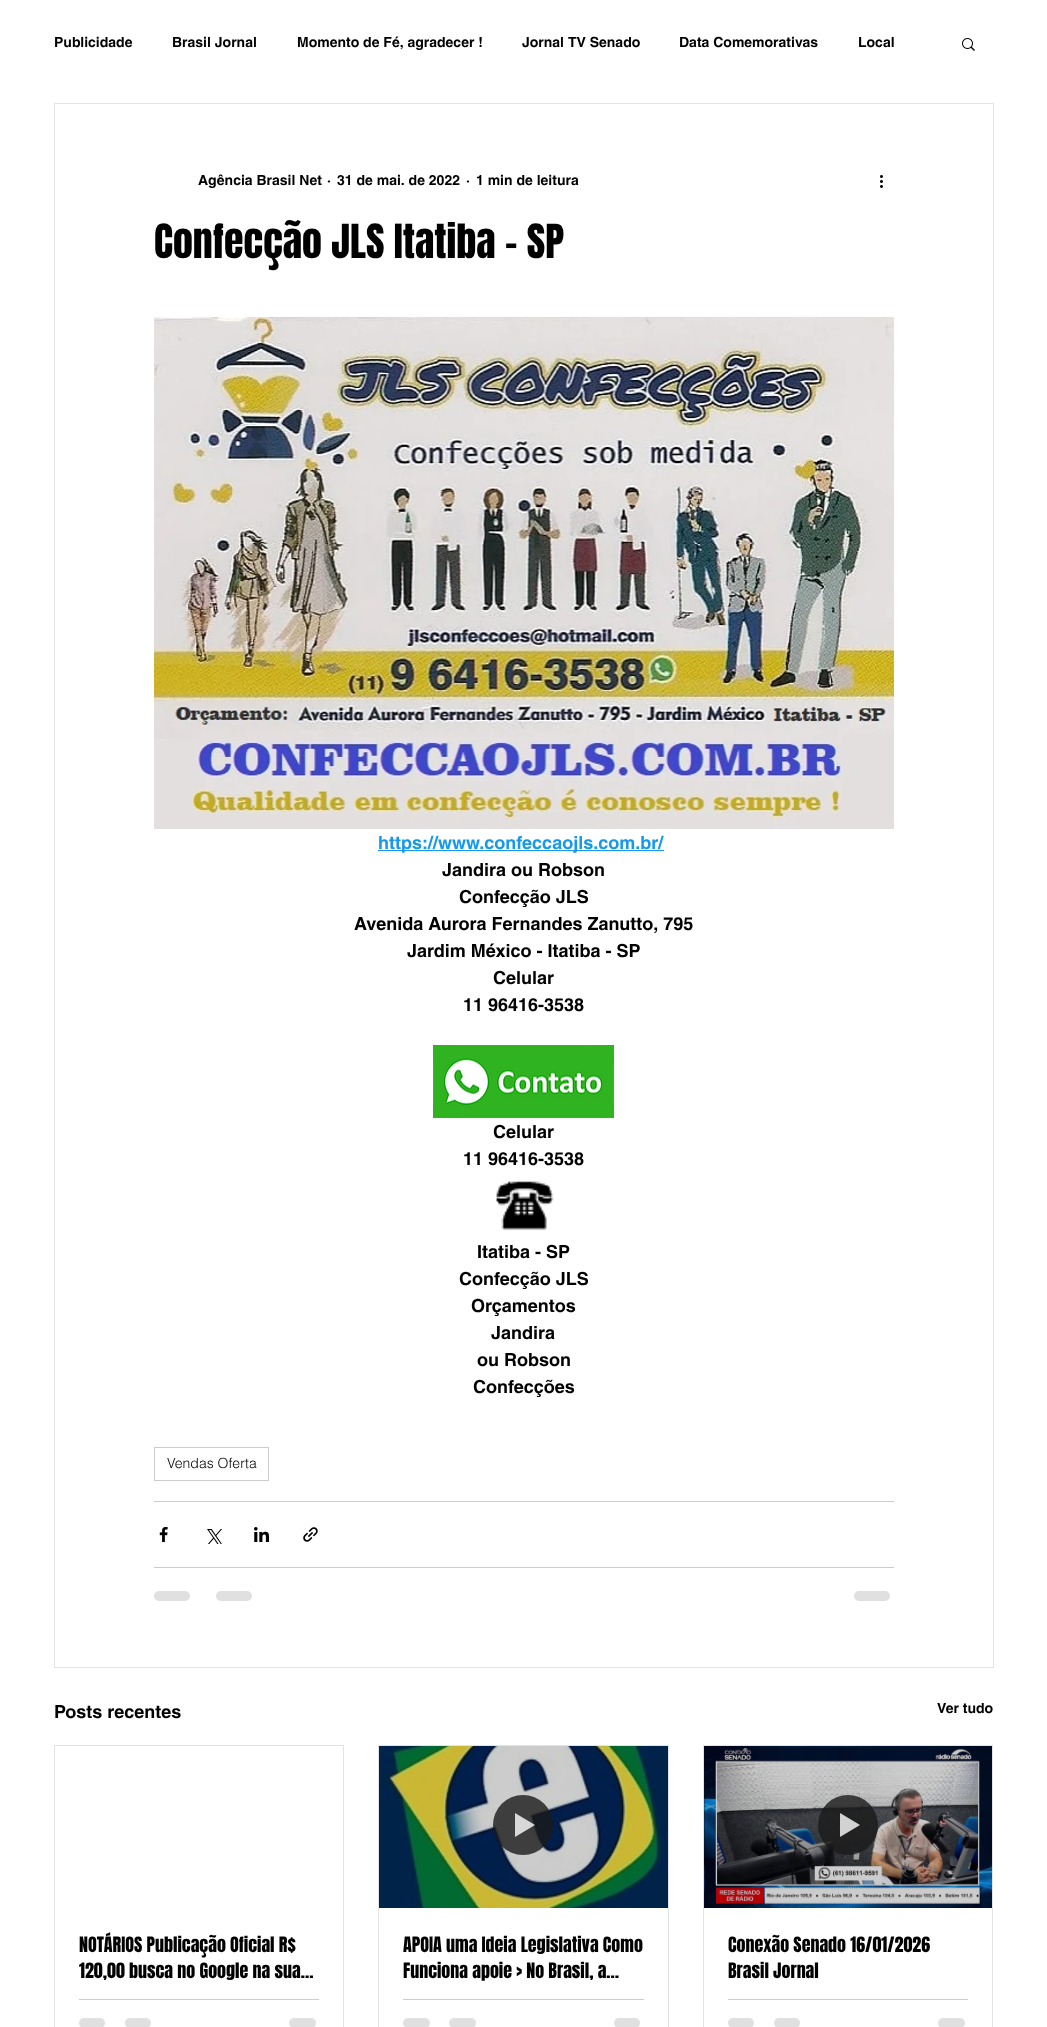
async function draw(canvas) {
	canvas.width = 1047;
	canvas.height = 2027;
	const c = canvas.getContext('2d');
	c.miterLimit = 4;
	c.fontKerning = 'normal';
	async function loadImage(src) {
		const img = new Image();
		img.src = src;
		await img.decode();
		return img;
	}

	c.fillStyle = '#fff';
	c.fillRect(0, 0, 1047, 2027);
	c.font = 'bold 14px helvetica';
	c.fillStyle = '#000';
	for (const [text, x, y] of [
		['Publicidade', 54, 47],
		['Brasil Jornal', 172, 47],
		['Momento de Fé, agradecer !', 297, 47],
		['Jornal TV Senado', 522, 47],
		['Data Comemorativas', 679, 47],
		['Local', 858, 47],
	]) {
		c.fillText(text, x, y);
	}
	c.drawImage(await loadImage('img1.png'), 962, 38, 13, 13);
	c.strokeStyle = '#e3e3e3';
	c.strokeRect(54.5, 103.5, 939, 1564);
	for (const [text, x, y] of [
		['Agência Brasil Net', 198, 185],
		['·', 327, 185],
		['31 de mai. de 2022', 337, 185],
		['·', 466, 185],
		['1 min de leitura', 476, 185],
	]) {
		c.fillText(text, x, y);
	}
	c.drawImage(await loadImage('img2.png'), 880, 175, 3, 13);
	c.font = '40px Anton';
	c.fillText('Confecção JLS Itatiba - SP', 154, 258);
	c.drawImage(await loadImage('img3.png'), 154, 317, 740, 512);
	c.fillStyle = '#1499eb';
	c.fillRect(378, 850, 286, 1);
	c.font = 'bold 18px helvetica';
	c.fillText('https://www.confeccaojls.com.br/', 378, 849);
	c.fillStyle = '#000';
	for (const [text, x, y] of [
		['Jandira ou Robson', 442, 876],
		['Confecção JLS', 459, 903],
		['Avenida Aurora Fernandes Zanutto, 795', 354, 930],
		['Jardim México - Itatiba - SP', 407, 957],
		['Celular', 493, 984],
		['11 96416-3538', 463, 1011],
	]) {
		c.fillText(text, x, y);
	}
	c.drawImage(await loadImage('img4.png'), 433, 1045, 181, 73);
	c.fillText('Celular', 493, 1138);
	c.fillText('11 96416-3538', 463, 1165);
	c.drawImage(await loadImage('img5.png'), 496, 1180, 58, 51);
	for (const [text, x, y] of [
		['Itatiba - SP', 477, 1258],
		['Confecção JLS', 459, 1285],
		['Orçamentos', 471, 1312],
		['Jandira', 491, 1339],
		['ou Robson', 477, 1366],
		['Confecções', 473, 1393],
	]) {
		c.fillText(text, x, y);
	}
	c.strokeStyle = '#ccc';
	c.strokeRect(154.5, 1447.5, 114, 33);
	c.font = '300 14px helvetica';
	c.fillText('Vendas Oferta', 167, 1468);
	c.fillStyle = '#ccc';
	c.fillRect(154, 1501, 740, 1);
	c.drawImage(await loadImage('img6.png'), 159, 1527, 9, 15);
	c.drawImage(await loadImage('img7.png'), 207, 1529, 15, 15);
	c.drawImage(await loadImage('img8.png'), 254, 1527, 15, 15);
	c.drawImage(await loadImage('img9.png'), 303, 1527, 15, 15);
	c.fillRect(154, 1567, 740, 1);
	c.fillStyle = '#e0e0e0';
	c.beginPath();
	c.roundRect(154, 1591, 36, 10, 5);
	c.fill();
	c.beginPath();
	c.roundRect(216, 1591, 36, 10, 5);
	c.fill();
	c.beginPath();
	c.roundRect(854, 1591, 36, 10, 5);
	c.fill();
	c.font = 'bold 18px helvetica';
	c.fillStyle = '#000';
	c.fillText('Posts recentes', 54, 1718);
	c.font = 'bold 14px helvetica';
	c.fillText('Ver tudo', 937, 1713);
	c.strokeStyle = '#e3e3e3';
	c.strokeRect(54.5, 1745.5, 289, 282);
	c.font = '18px Anton';
	c.fillText('NOTÁRIOS Publicação Oficial R$', 79, 1952);
	c.save();
	c.beginPath();
	c.rect(79, 1932, 240, 52);
	c.clip();
	c.fillText('120,00 busca no Google na sua…', 79, 1978);
	c.restore();
	c.fillStyle = '#ccc';
	c.fillRect(79, 1999, 240, 1);
	c.fillStyle = '#e0e0e0';
	c.beginPath();
	c.roundRect(79, 2018, 26, 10, 5);
	c.fill();
	c.beginPath();
	c.roundRect(125, 2018, 26, 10, 5);
	c.fill();
	c.beginPath();
	c.roundRect(289, 2018, 27, 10, 5);
	c.fill();
	c.strokeRect(378.5, 1745.5, 290, 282);
	c.drawImage(await loadImage('img10.png'), 379, 1746, 289, 162);
	c.fillStyle = '#1a1a1acc';
	c.beginPath();
	c.arc(523, 1825, 30, 0, 2 * Math.PI);
	c.fill();
	c.fillStyle = '#ffffffcc';
	c.beginPath();
	c.moveTo(515, 1813);
	c.lineTo(515, 1837);
	c.lineTo(535, 1825);
	c.closePath();
	c.fill();
	c.fillStyle = '#000';
	c.fillText('APOIA uma Ideia Legislativa Como', 403, 1952);
	c.fillText('Funciona apoie > No Brasil, a…', 403, 1978);
	c.fillStyle = '#ccc';
	c.fillRect(403, 1999, 241, 1);
	c.fillStyle = '#e0e0e0';
	c.beginPath();
	c.roundRect(403, 2018, 27, 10, 5);
	c.fill();
	c.beginPath();
	c.roundRect(449, 2018, 27, 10, 5);
	c.fill();
	c.beginPath();
	c.roundRect(614, 2018, 26, 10, 5);
	c.fill();
	c.strokeRect(703.5, 1745.5, 289, 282);
	c.drawImage(await loadImage('img11.png'), 704, 1746, 288, 162);
	c.fillStyle = '#1a1a1acc';
	c.beginPath();
	c.arc(848, 1825, 30, 0, 2 * Math.PI);
	c.fill();
	c.fillStyle = '#ffffffcc';
	c.beginPath();
	c.moveTo(840, 1813);
	c.lineTo(840, 1837);
	c.lineTo(860, 1825);
	c.closePath();
	c.fill();
	c.fillStyle = '#000';
	c.fillText('Conexão Senado 16/01/2026', 728, 1952);
	c.fillText('Brasil Jornal', 728, 1978);
	c.fillStyle = '#ccc';
	c.fillRect(728, 1999, 240, 1);
	c.fillStyle = '#e0e0e0';
	c.beginPath();
	c.roundRect(728, 2018, 26, 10, 5);
	c.fill();
	c.beginPath();
	c.roundRect(774, 2018, 26, 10, 5);
	c.fill();
	c.beginPath();
	c.roundRect(938, 2018, 27, 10, 5);
	c.fill();
}

draw(document.querySelector('canvas'));
